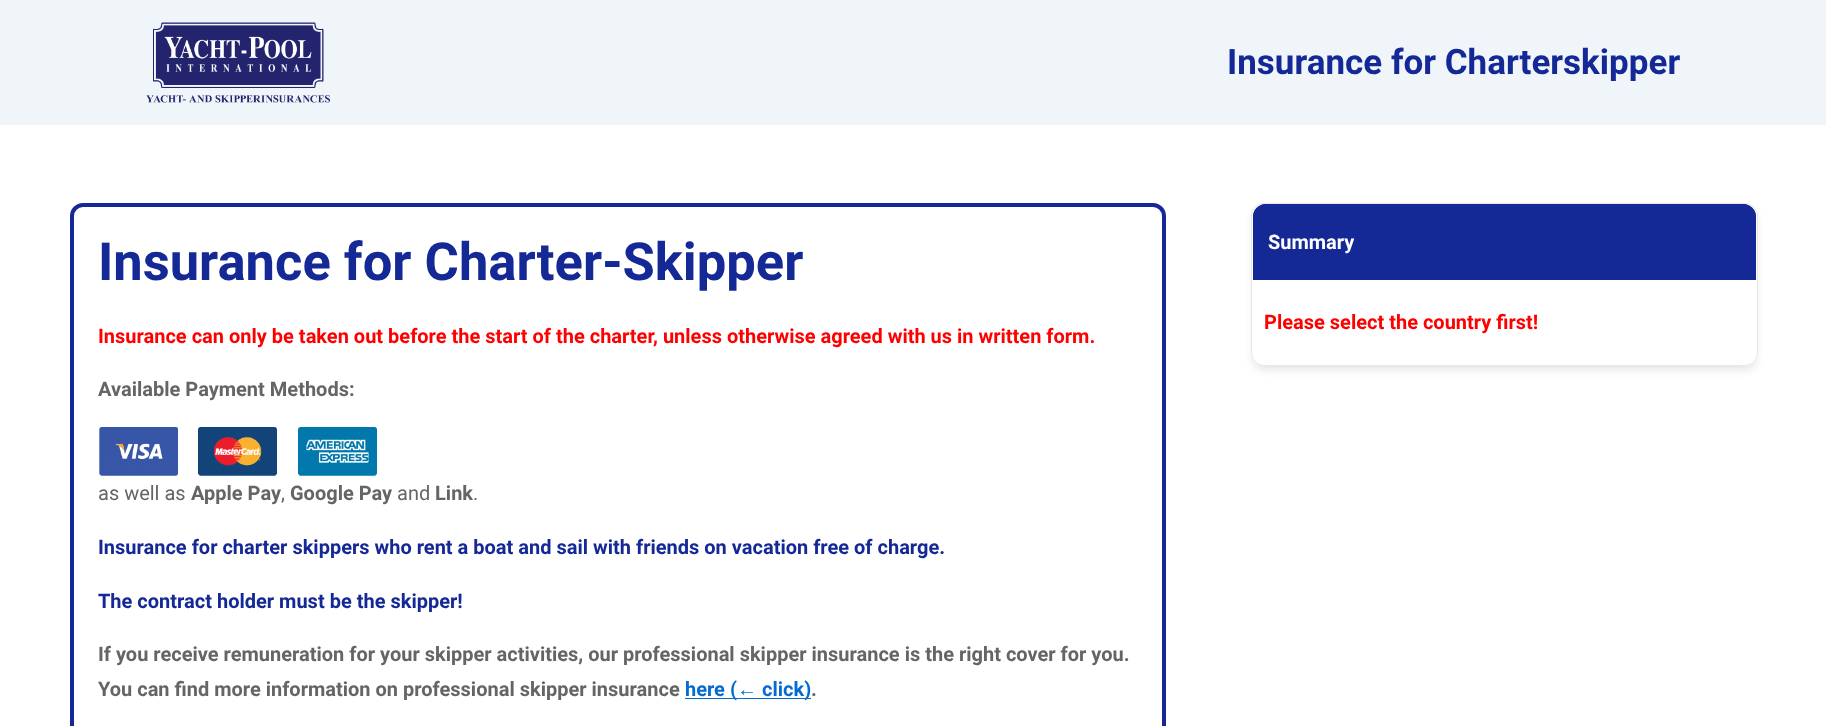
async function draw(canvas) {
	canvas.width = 1826;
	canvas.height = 726;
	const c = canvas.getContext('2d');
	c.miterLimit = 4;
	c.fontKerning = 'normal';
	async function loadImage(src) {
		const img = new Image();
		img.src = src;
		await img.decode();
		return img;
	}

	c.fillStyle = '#fff';
	c.fillRect(0, 0, 1826, 726);
	c.fillStyle = '#f0f5fa';
	c.fillRect(0, 0, 1826, 125);
	c.drawImage(await loadImage('img1.png'), 146, 22, 184, 81);
	c.font = 'bold 35px Roboto';
	c.fillStyle = '#142896';
	c.fillText('Insurance for Charterskipper', 1227, 74);
	c.beginPath();
	c.roundRect(72, 205, 1092, 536, 11);
	c.strokeStyle = '#142896';
	c.lineWidth = 4;
	c.stroke();
	c.font = 'bold 52.5px Roboto';
	c.fillText('Insurance for Charter-Skipper', 98, 280);
	c.font = 'bold 20px Roboto';
	c.fillStyle = '#f00';
	c.fillText('Insurance can only be taken out before the start of the charter, unless otherwise agreed with us in written form.', 98, 343);
	c.fillStyle = '#656565';
	c.fillText('Available Payment Methods:', 98, 396);
	c.drawImage(await loadImage('img2.png'), 99, 427, 79, 49);
	c.drawImage(await loadImage('img3.png'), 198, 427, 79, 49);
	c.drawImage(await loadImage('img4.png'), 298, 427, 79, 49);
	c.font = '20px Roboto';
	c.fillText('as well as', 98, 500);
	c.font = 'bold 20px Roboto';
	c.fillText('Apple Pay', 191, 500);
	c.font = '20px Roboto';
	c.fillText(',', 281, 500);
	c.font = 'bold 20px Roboto';
	c.fillText('Google Pay', 290, 500);
	c.font = '20px Roboto';
	c.fillText('and', 397, 500);
	c.font = 'bold 20px Roboto';
	c.fillText('Link', 435, 500);
	c.font = '20px Roboto';
	c.fillText('.', 473, 500);
	c.font = 'bold 20px Roboto';
	c.fillStyle = '#142896';
	c.fillText('Insurance for charter skippers who rent a boat and sail with friends on vacation free of charge.', 98, 554);
	c.fillText('The contract holder must be the skipper!', 98, 608);
	c.fillStyle = '#656565';
	c.fillText('If you receive remuneration for your skipper activities, our professional skipper insurance is the right cover for you.', 98, 661);
	c.fillText('You can find more information on professional skipper insurance', 98, 696);
	c.fillStyle = '#046bd2';
	c.fillRect(685, 698, 126, 1);
	c.fillText('here (', 685, 696);
	c.font = 'bold 20px Liberation Sans';
	c.fillText('←', 737, 696);
	c.font = 'bold 20px Roboto';
	c.fillText('click)', 762, 696);
	c.fillStyle = '#656565';
	c.fillText('.', 811, 696);
	c.save();
	c.beginPath();
	c.moveTo(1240, 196);
	c.lineTo(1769, 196);
	c.lineTo(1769, 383);
	c.lineTo(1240, 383);
	c.closePath();
	c.moveTo(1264, 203);
	c.lineTo(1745, 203);
	c.bezierCurveTo(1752, 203, 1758, 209, 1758, 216);
	c.lineTo(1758, 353);
	c.bezierCurveTo(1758, 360, 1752, 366, 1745, 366);
	c.lineTo(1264, 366);
	c.bezierCurveTo(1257, 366, 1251, 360, 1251, 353);
	c.lineTo(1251, 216);
	c.bezierCurveTo(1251, 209, 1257, 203, 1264, 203);
	c.closePath();
	c.clip('evenodd');
	c.fillStyle = '#0000001a';
	c.filter = 'blur(4px)';
	c.beginPath();
	c.roundRect(1253, 209, 503, 161, 11);
	c.fill();
	c.filter = 'none';
	c.restore();
	c.beginPath();
	c.roundRect(1251.5, 203.5, 506, 162, 12.5);
	c.strokeStyle = '#e7e7e7';
	c.lineWidth = 1;
	c.stroke();
	c.save();
	c.beginPath();
	c.roundRect(1253, 204, 503, 161, 11);
	c.clip();
	c.fillStyle = '#142896';
	c.beginPath();
	c.roundRect(1253, 204, 503, 76, [13, 13, 0, 0]);
	c.fill();
	c.restore();
	c.beginPath();
	c.roundRect(1255, 206, 499, 72, [11, 11, 0, 0]);
	c.strokeStyle = '#142896';
	c.lineWidth = 4;
	c.stroke();
	c.fillStyle = '#fff';
	c.fillText('Summary', 1268, 249);
	c.fillStyle = '#f00';
	c.fillText('Please select the country first!', 1264, 329);
}

draw(document.querySelector('canvas'));
